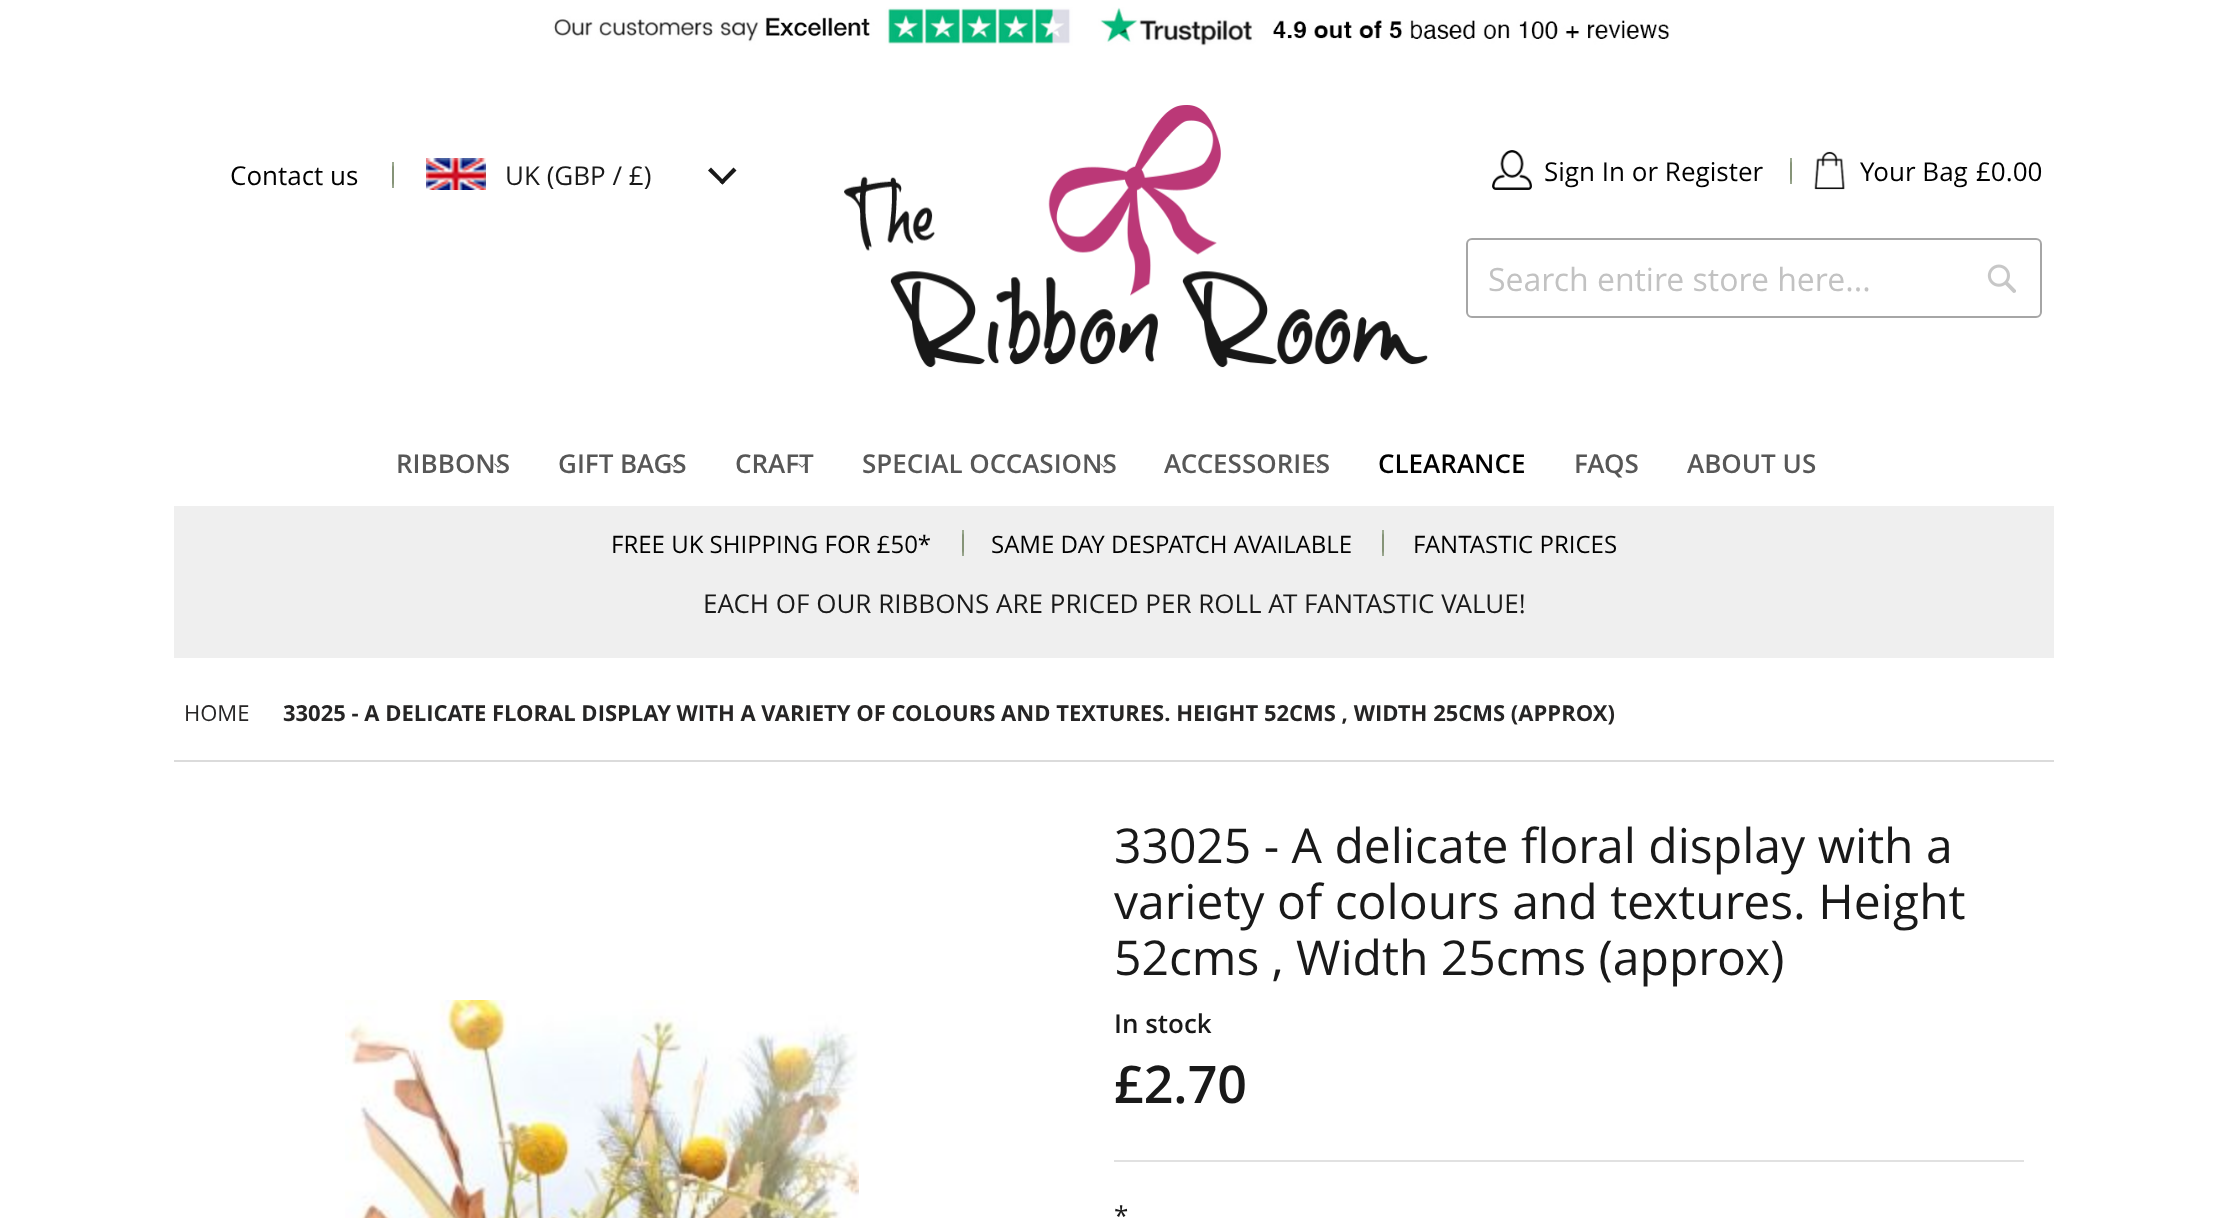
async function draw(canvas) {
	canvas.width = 2228;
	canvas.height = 1218;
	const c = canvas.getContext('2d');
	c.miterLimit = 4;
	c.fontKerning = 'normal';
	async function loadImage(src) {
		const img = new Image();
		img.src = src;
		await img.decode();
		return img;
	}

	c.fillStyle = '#fff';
	c.fillRect(0, 0, 2228, 1218);
	c.drawImage(await loadImage('img1.png'), 553, 7, 1117, 39);
	c.font = '26px Open Sans';
	c.fillStyle = '#000';
	c.fillText('Contact us', 230, 185);
	c.drawImage(await loadImage('img2.png'), 392, 162, 2, 26);
	c.drawImage(await loadImage('img3.png'), 426, 158, 60, 32);
	c.fillStyle = '#191919';
	c.fillText('UK (GBP / £)', 505, 185);
	c.beginPath();
	c.moveTo(719.5, 182);
	c.lineTo(733.5, 167.5);
	c.lineTo(736.5, 170.5);
	c.lineTo(722.5, 184.5);
	c.closePath();
	c.fill();
	c.beginPath();
	c.moveTo(708, 170.5);
	c.lineTo(711, 167.5);
	c.lineTo(725, 182);
	c.lineTo(722.5, 184.5);
	c.closePath();
	c.fill();
	c.drawImage(await loadImage('img4.png'), 844, 105, 584, 263);
	c.drawImage(await loadImage('img5.png'), 1492, 150, 40, 40);
	c.fillStyle = '#000';
	c.fillText('Sign In or Register', 1544, 181);
	c.drawImage(await loadImage('img2.png'), 1790, 158, 2, 26);
	c.drawImage(await loadImage('img6.png'), 1814, 151, 31, 39);
	c.fillText('Your Bag', 1860, 181);
	c.fillText('£0.00', 1976, 181);
	c.beginPath();
	c.roundRect(1467, 239, 574, 78, 5);
	c.strokeStyle = '#a6a6a6';
	c.lineWidth = 2;
	c.stroke();
	c.font = '32px Open Sans';
	c.fillStyle = '#c2c2c2';
	c.fillText('Search entire store here...', 1488, 291);
	c.drawImage(await loadImage('img7.png'), 1987, 264, 29, 29);
	c.font = '600 26px Open Sans';
	c.fillStyle = '#575757';
	c.fillText('RIBBONS', 396, 473);
	c.drawImage(await loadImage('img8.png'), 494, 463, 8, 5);
	c.fillText('GIFT BAGS', 558, 473);
	c.drawImage(await loadImage('img9.png'), 670, 463, 8, 5);
	c.fillText('CRAFT', 735, 473);
	c.drawImage(await loadImage('img10.png'), 798, 463, 7, 5);
	c.fillText('SPECIAL OCCASIONS', 862, 473);
	c.drawImage(await loadImage('img11.png'), 1100, 463, 8, 5);
	c.fillText('ACCESSORIES', 1164, 473);
	c.drawImage(await loadImage('img12.png'), 1314, 463, 8, 5);
	c.fillStyle = '#000';
	c.fillText('CLEARANCE', 1378, 473);
	c.fillStyle = '#575757';
	c.fillText('FAQS', 1574, 473);
	c.fillText('ABOUT US', 1687, 473);
	c.fillStyle = '#efefef';
	c.fillRect(174, 506, 1880, 152);
	c.font = '24px Open Sans';
	c.fillStyle = '#000';
	c.fillText('FREE UK SHIPPING FOR £50*', 611, 553);
	c.drawImage(await loadImage('img2.png'), 962, 530, 2, 26);
	c.fillText('SAME DAY DESPATCH AVAILABLE', 991, 553);
	c.drawImage(await loadImage('img2.png'), 1382, 530, 2, 26);
	c.fillText('FANTASTIC PRICES', 1413, 553);
	c.font = '26px Open Sans';
	c.fillStyle = '#191919';
	c.fillText('EACH OF OUR RIBBONS ARE PRICED PER ROLL AT FANTASTIC VALUE!', 703, 613);
	c.fillStyle = '#dbdbdb';
	c.fillRect(174, 760, 1880, 2);
	c.font = '22px Open Sans';
	c.fillStyle = '#262525';
	c.fillText('HOME', 184, 721);
	c.font = 'bold 22px Open Sans';
	c.fillText('33025 - A DELICATE FLORAL DISPLAY WITH A VARIETY OF COLOURS AND TEXTURES. HEIGHT 52CMS , WIDTH 25CMS (APPROX)', 283, 721);
	c.drawImage(await loadImage('img13.png'), 345, 1000, 514, 218);
	c.font = '48px Open Sans';
	c.fillStyle = '#191919';
	for (const [text, x, y] of [
		['33025 - A delicate floral display with a', 1114, 863],
		['variety of colours and textures. Height', 1114, 919],
		['52cms , Width 25cms (approx)', 1114, 975],
	]) {
		c.fillText(text, x, y);
	}
	c.font = '600 26px Open Sans';
	c.fillText('In stock', 1114, 1033);
	c.font = '600 52px Open Sans';
	c.fillText('£2.70', 1114, 1103);
	c.fillStyle = '#e1e1e1';
	c.fillRect(1114, 1160, 910, 2);
	c.font = '26px Open Sans';
	c.fillStyle = '#191919';
	c.fillText('*', 1114, 1225);
}

draw(document.querySelector('canvas'));
